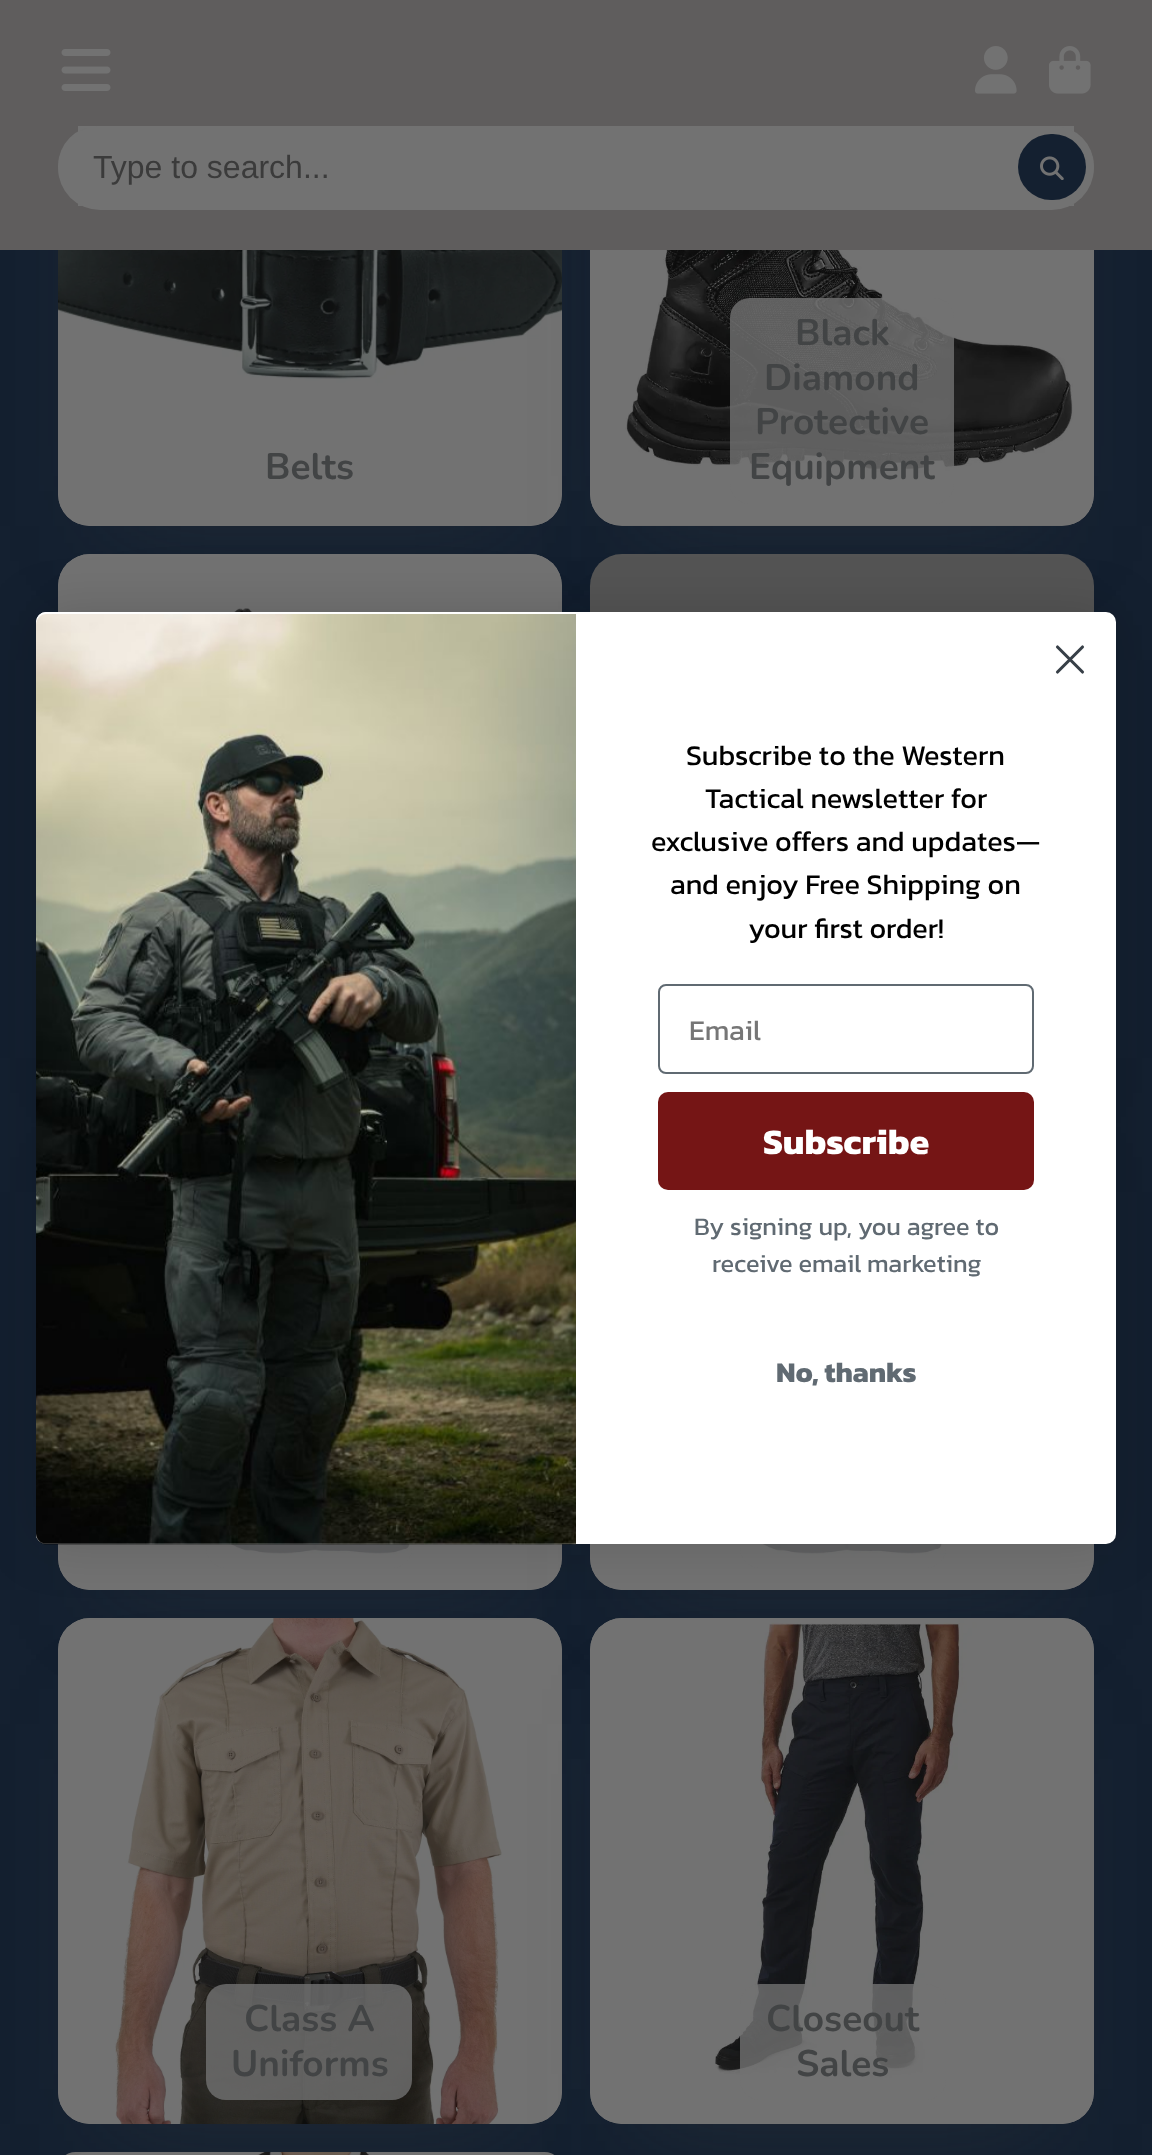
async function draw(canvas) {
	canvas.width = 1152;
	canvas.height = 2155;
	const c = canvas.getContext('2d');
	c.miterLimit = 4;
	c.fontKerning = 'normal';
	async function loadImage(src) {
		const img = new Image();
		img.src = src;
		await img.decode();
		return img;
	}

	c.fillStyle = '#142030';
	c.fillRect(0, 0, 1152, 2155);
	c.fillStyle = '#3d3f404d';
	c.filter = 'blur(52.5px)';
	c.beginPath();
	c.rect(110, 128, 400, 398);
	c.fill();
	c.filter = 'none';
	c.fillStyle = '#6e6e6e';
	c.beginPath();
	c.roundRect(58, 22, 504, 504, 32);
	c.fill();
	c.drawImage(await loadImage('img5.png'), 58, 250, 504, 276);
	c.fillStyle = '#3d3f404d';
	c.filter = 'blur(52.5px)';
	c.beginPath();
	c.rect(642, 128, 400, 398);
	c.fill();
	c.filter = 'none';
	c.fillStyle = '#6e6e6e';
	c.beginPath();
	c.roundRect(590, 22, 504, 504, 32);
	c.fill();
	c.fillStyle = '#5f5d5d';
	c.fillRect(0, 0, 1152, 250);
	c.drawImage(await loadImage('img1.png'), 61, 49, 50, 42);
	c.drawImage(await loadImage('img2.png'), 975, 46, 42, 48);
	c.drawImage(await loadImage('img3.png'), 1049, 46, 42, 48);
	c.fillStyle = '#727272';
	c.beginPath();
	c.roundRect(58, 126, 1036, 80, 40);
	c.fill();
	c.fillRect(78, 126, 996, 80);
	c.beginPath();
	c.roundRect(58, 126, 1036, 84, 42);
	c.fill();
	c.font = '32px Liberation Sans';
	c.fillStyle = '#3b3b3b';
	c.fillText('Type to search...', 93, 178);
	c.fillStyle = '#142030';
	c.beginPath();
	c.roundRect(1018, 134, 68, 66, 33);
	c.fill();
	c.drawImage(await loadImage('img4.png'), 1040, 156, 24, 24);
	c.font = 'bold 37px Nunito';
	c.fillStyle = '#424445';
	c.fillText('Belts', 265, 479);
	c.drawImage(await loadImage('img6.png'), 590, 250, 504, 276);
	c.fillStyle = '#727272cc';
	c.beginPath();
	c.roundRect(730, 298, 224, 206, 20);
	c.fill();
	c.fillStyle = '#424445';
	for (const [text, x, y] of [
		['Black', 795, 345],
		['Diamond', 764, 390],
		['Protective', 755, 434],
		['Equipment', 749, 479],
	]) {
		c.fillText(text, x, y);
	}
	c.fillStyle = '#3d3f404d';
	c.filter = 'blur(52.5px)';
	c.beginPath();
	c.rect(110, 660, 400, 398);
	c.fill();
	c.filter = 'none';
	c.fillStyle = '#6e6e6e';
	c.beginPath();
	c.roundRect(58, 554, 504, 504, 32);
	c.fill();
	c.drawImage(await loadImage('img7.png'), 58, 554, 504, 58);
	c.fillStyle = '#3d3f404d';
	c.filter = 'blur(52.5px)';
	c.beginPath();
	c.rect(642, 660, 400, 398);
	c.fill();
	c.filter = 'none';
	c.fillStyle = '#545454';
	c.beginPath();
	c.roundRect(590, 554, 504, 504, 32);
	c.fill();
	c.fillStyle = '#3d3f404d';
	c.filter = 'blur(52.5px)';
	c.beginPath();
	c.rect(110, 1192, 400, 398);
	c.fill();
	c.filter = 'none';
	c.fillStyle = '#6e6e6e';
	c.beginPath();
	c.roundRect(58, 1086, 504, 504, 32);
	c.fill();
	c.drawImage(await loadImage('img8.png'), 58, 1544, 504, 46);
	c.fillStyle = '#727272cc';
	c.beginPath();
	c.roundRect(206, 1406, 206, 162, 20);
	c.fill();
	c.fillStyle = '#3d3f404d';
	c.filter = 'blur(52.5px)';
	c.beginPath();
	c.rect(642, 1192, 400, 398);
	c.fill();
	c.filter = 'none';
	c.fillStyle = '#6e6e6e';
	c.beginPath();
	c.roundRect(590, 1086, 504, 504, 32);
	c.fill();
	c.drawImage(await loadImage('img9.png'), 590, 1544, 504, 46);
	c.fillStyle = '#727272cc';
	c.beginPath();
	c.roundRect(740, 1406, 206, 162, 20);
	c.fill();
	c.fillStyle = '#3d3f404d';
	c.filter = 'blur(52.5px)';
	c.beginPath();
	c.rect(110, 1724, 400, 400);
	c.fill();
	c.filter = 'none';
	c.fillStyle = '#6e6e6e';
	c.beginPath();
	c.roundRect(58, 1618, 504, 506, 32);
	c.fill();
	c.drawImage(await loadImage('img10.png'), 58, 1618, 504, 506);
	c.fillStyle = '#727272cc';
	c.beginPath();
	c.roundRect(206, 1984, 206, 116, 20);
	c.fill();
	c.fillStyle = '#424445';
	c.fillText('Class A', 244, 2031);
	c.fillText('Uniforms', 231, 2076);
	c.fillStyle = '#3d3f404d';
	c.filter = 'blur(52.5px)';
	c.beginPath();
	c.rect(642, 1724, 400, 400);
	c.fill();
	c.filter = 'none';
	c.fillStyle = '#6e6e6e';
	c.beginPath();
	c.roundRect(590, 1618, 504, 506, 32);
	c.fill();
	c.drawImage(await loadImage('img11.png'), 590, 1618, 504, 506);
	c.fillStyle = '#727272cc';
	c.beginPath();
	c.roundRect(740, 1984, 206, 116, 20);
	c.fill();
	c.fillStyle = '#424445';
	c.fillText('Closeout', 766, 2031);
	c.fillText('Sales', 796, 2076);
	c.fillStyle = '#6e6e6e';
	c.beginPath();
	c.roundRect(58, 2152, 504, 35, 32);
	c.fill();
	c.drawImage(await loadImage('img12.png'), 77, 2152, 466, 3);
	c.fillStyle = '#00000026';
	c.filter = 'blur(27px)';
	c.beginPath();
	c.roundRect(36, 612, 1080, 932, 10);
	c.fill();
	c.filter = 'none';
	c.fillStyle = '#fff';
	c.beginPath();
	c.roundRect(36, 612, 1080, 932, 10);
	c.fill();
	c.beginPath();
	c.moveTo(1057.5, 647);
	c.lineTo(1082.5, 672);
	c.moveTo(1057.5, 672);
	c.lineTo(1082.5, 647);
	c.closePath();
	c.strokeStyle = '#373f47';
	c.lineWidth = 3.1;
	c.lineCap = 'round';
	c.lineJoin = 'round';
	c.stroke();
	c.beginPath();
	c.roundRect(36, 612, 540, 932, [10, 0, 0, 10]);
	c.fill();
	c.drawImage(await loadImage('img13.png'), 36, 614, 540, 931);
	c.font = '28.75px Kanit';
	c.fillStyle = '#000';
	for (const [text, x, y] of [
		['Subscribe to the Western', 686, 765],
		['Tactical newsletter for', 705, 808],
		['exclusive offers and updates—', 651, 851],
		['and enjoy Free Shipping on', 670, 894],
		['your first order!', 748, 938],
	]) {
		c.fillText(text, x, y);
	}
	c.beginPath();
	c.roundRect(659, 985, 374, 88, 7);
	c.strokeStyle = '#606a72';
	c.lineWidth = 2;
	c.lineJoin = 'miter';
	c.stroke();
	c.fillStyle = '#767676';
	c.fillText('Email', 689, 1040);
	c.fillStyle = '#751515';
	c.beginPath();
	c.roundRect(658, 1092, 376, 98, 10);
	c.fill();
	c.font = 'bold 36px Kanit';
	c.fillStyle = '#fff';
	c.fillText('Subscribe', 763, 1154);
	c.font = '25.25px Kanit';
	c.fillStyle = '#606a72';
	c.fillText('By signing up, you agree to', 694, 1235);
	c.fillText('receive email marketing', 712, 1272);
	c.font = 'bold 28.75px Kanit';
	c.fillText('No, thanks', 776, 1382);
}

draw(document.querySelector('canvas'));
